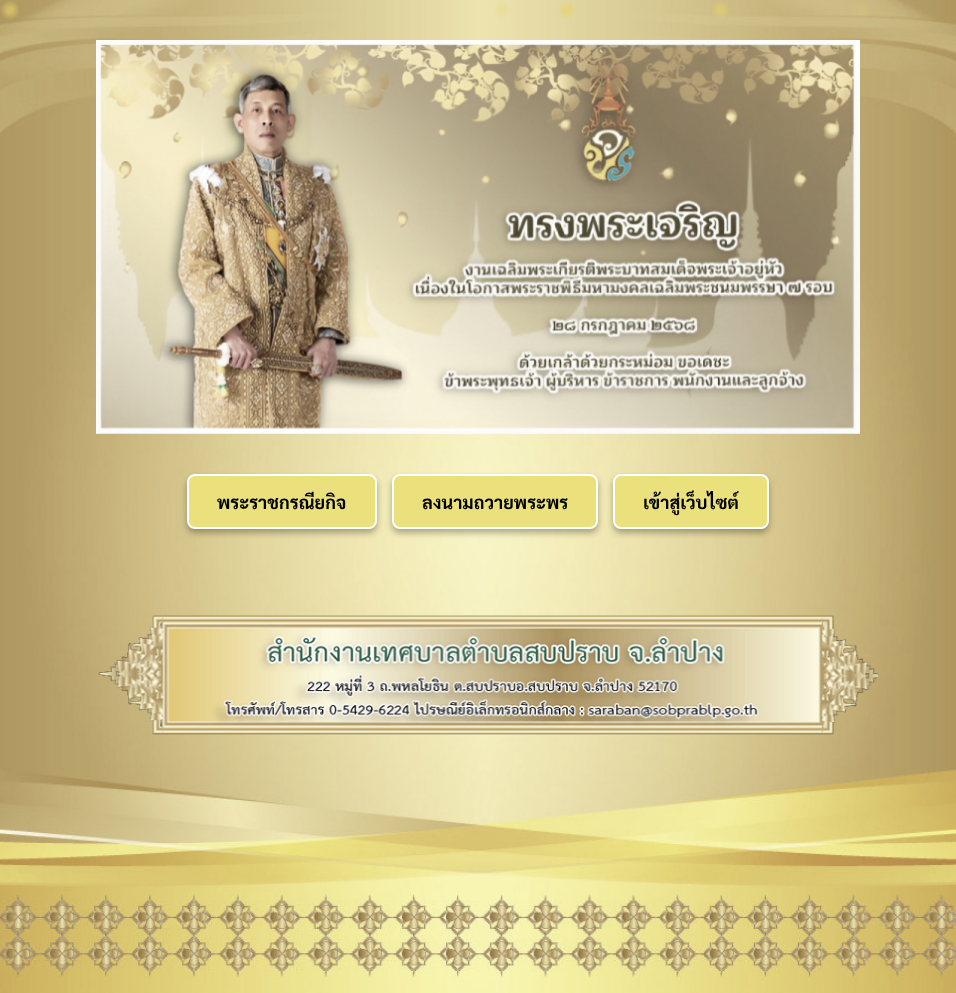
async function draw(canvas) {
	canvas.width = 956;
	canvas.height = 993;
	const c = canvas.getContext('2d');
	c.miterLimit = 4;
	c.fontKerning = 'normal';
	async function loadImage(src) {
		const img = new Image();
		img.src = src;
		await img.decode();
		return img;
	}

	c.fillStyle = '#fff';
	c.fillRect(0, 0, 956, 993);
	c.drawImage(await loadImage('img1.png'), 0, 0, 956, 993);
	c.drawImage(await loadImage('img2.png'), 96, 40, 764, 394);
	c.fillStyle = '#0000004d';
	c.filter = 'blur(3px)';
	c.beginPath();
	c.roundRect(187, 478, 190, 55, 8);
	c.fill();
	c.filter = 'none';
	c.fillStyle = '#eae17c';
	c.beginPath();
	c.roundRect(188, 475, 188, 53, 7);
	c.fill();
	c.strokeStyle = '#fff';
	c.lineWidth = 2;
	c.stroke();
	c.font = 'bold 18px Sarabun';
	c.fillStyle = '#000';
	c.fillText('พระราชกรณียกิจ', 217, 509);
	c.fillStyle = '#0000004d';
	c.filter = 'blur(3px)';
	c.beginPath();
	c.roundRect(392, 478, 206, 55, 8);
	c.fill();
	c.filter = 'none';
	c.fillStyle = '#eae17c';
	c.beginPath();
	c.roundRect(393, 475, 204, 53, 7);
	c.fill();
	c.stroke();
	c.fillStyle = '#000';
	c.fillText('ลงนามถวายพระพร', 422, 509);
	c.fillStyle = '#0000004d';
	c.filter = 'blur(3px)';
	c.beginPath();
	c.roundRect(613, 478, 156, 55, 8);
	c.fill();
	c.filter = 'none';
	c.fillStyle = '#eae17c';
	c.beginPath();
	c.roundRect(614, 475, 154, 53, 7);
	c.fill();
	c.stroke();
	c.fillStyle = '#000';
	c.fillText('เข้าสู่เว็บไซต์', 643, 509);
	c.drawImage(await loadImage('img3.png'), 98, 615, 780, 120);
}

draw(document.querySelector('canvas'));
